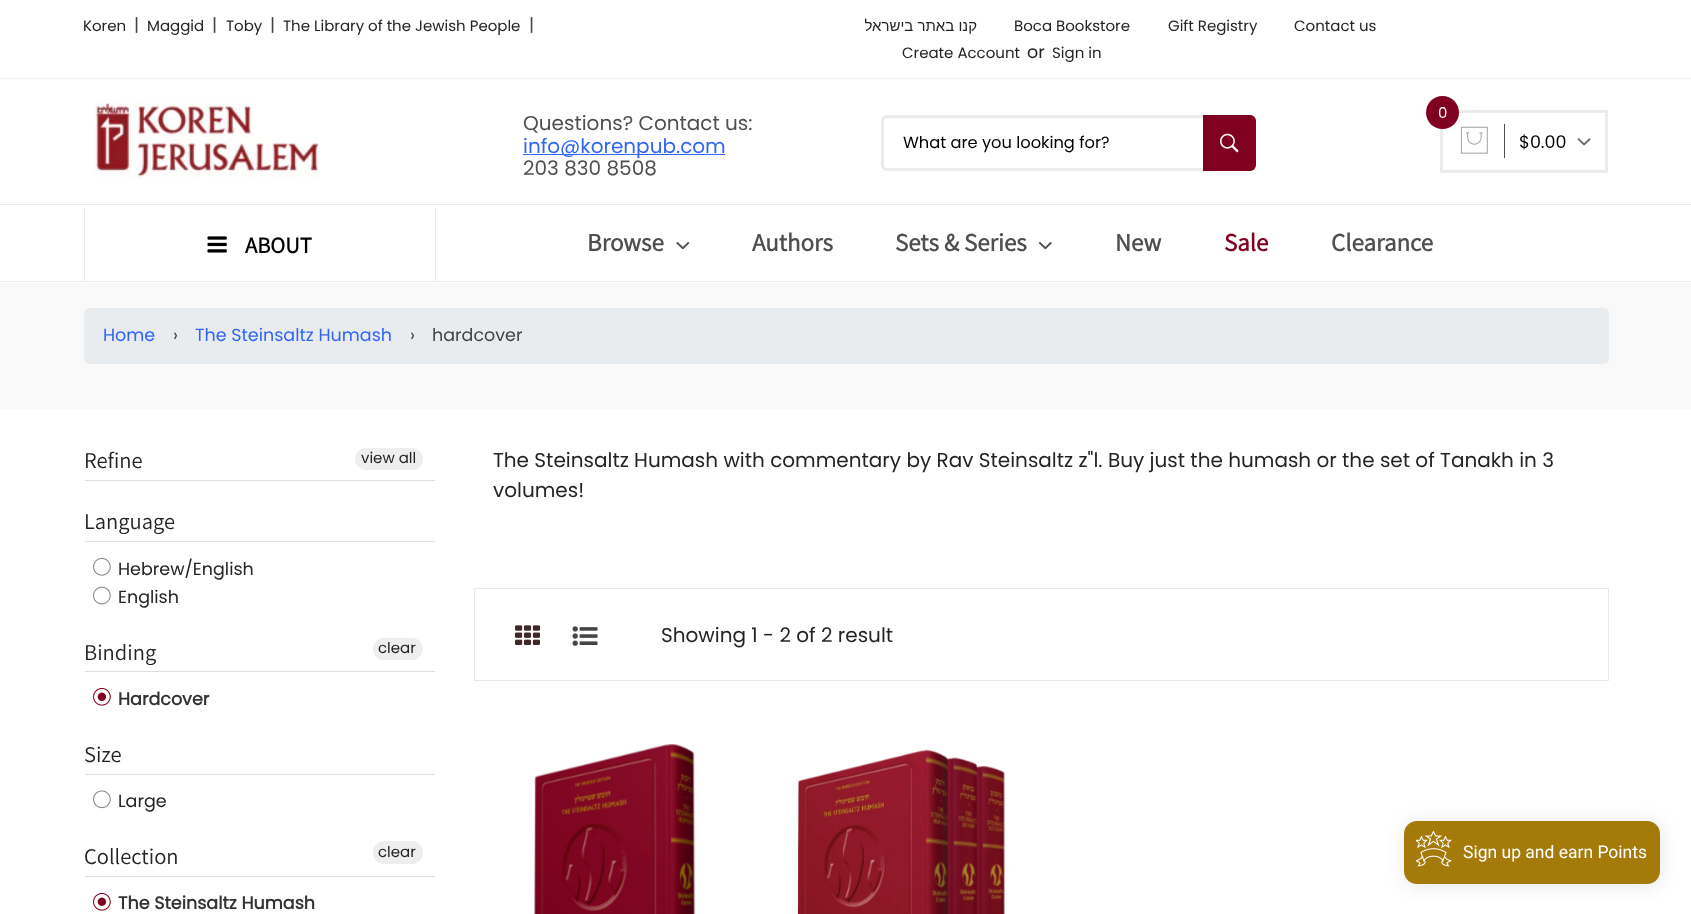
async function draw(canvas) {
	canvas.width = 1691;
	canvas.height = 914;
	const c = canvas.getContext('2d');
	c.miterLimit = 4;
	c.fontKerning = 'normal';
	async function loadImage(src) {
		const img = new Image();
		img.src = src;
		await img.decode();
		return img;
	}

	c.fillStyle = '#fff';
	c.fillRect(0, 0, 1691, 914);
	c.font = '15px Poppins';
	c.fillStyle = '#242424';
	c.fillText('Koren', 83, 31);
	c.font = '17.5px Poppins';
	c.fillStyle = '#454545';
	c.fillText('|', 134, 31);
	c.font = '15px Poppins';
	c.fillStyle = '#242424';
	c.fillText('Maggid', 147, 31);
	c.font = '17.5px Poppins';
	c.fillStyle = '#454545';
	c.fillText('|', 212, 31);
	c.font = '15px Poppins';
	c.fillStyle = '#242424';
	c.fillText('Toby', 226, 31);
	c.font = '17.5px Poppins';
	c.fillStyle = '#454545';
	c.fillText('|', 270, 31);
	c.font = '15px Poppins';
	c.fillStyle = '#242424';
	c.fillText('The Library of the Jewish People', 283, 31);
	c.font = '17.5px Poppins';
	c.fillStyle = '#454545';
	c.fillText('|', 529, 31);
	c.direction = 'rtl';
	c.font = '15px Liberation Sans';
	c.fillStyle = '#242424';
	c.fillText('קנו באתר בישראל', 977, 31);
	c.direction = 'ltr';
	c.font = '15px Poppins';
	for (const [text, x, y] of [
		['Boca Bookstore', 1014, 31],
		['Gift Registry', 1168, 31],
		['Contact us', 1294, 31],
		['Create Account', 902, 58],
	]) {
		c.fillText(text, x, y);
	}
	c.font = '17.5px Poppins';
	c.fillText('or', 1027, 58);
	c.font = '15px Poppins';
	c.fillText('Sign in', 1052, 58);
	c.fillStyle = '#f1f1f1';
	c.fillRect(0, 78, 1691, 1);
	c.drawImage(await loadImage('img1.png'), 94, 98, 225, 81);
	c.font = '20px Poppins';
	c.fillStyle = '#4f4f4f';
	c.fillText('Questions? Contact us:', 523, 130);
	c.fillStyle = '#3165f6';
	c.fillRect(523, 154, 202, 1);
	c.fillText('info@korenpub.com', 523, 153);
	c.fillStyle = '#4f4f4f';
	c.fillText('203 830 8508', 523, 175);
	c.beginPath();
	c.roundRect(882.5, 116.5, 372, 53, 4.5);
	c.strokeStyle = '#ebebeb';
	c.lineWidth = 3;
	c.stroke();
	c.font = '16.25px Poppins';
	c.fillStyle = '#000';
	c.fillText('What are you looking for?', 903, 148);
	c.fillStyle = '#800020';
	c.beginPath();
	c.roundRect(1203, 115, 53, 56, [0, 6, 6, 0]);
	c.fill();
	c.drawImage(await loadImage('img2.png'), 1220, 133, 19, 20);
	c.strokeRect(1441.5, 111.5, 165, 60);
	c.beginPath();
	c.arc(1442.5, 112.5, 16.5, 0, 2 * Math.PI);
	c.fill();
	c.font = '15px Poppins';
	c.fillStyle = '#fff';
	c.fillText('0', 1438, 118);
	c.fillStyle = '#4f4f4f';
	c.fillRect(1504, 124, 1, 34);
	c.drawImage(await loadImage('img3.png'), 1460, 126, 28, 28);
	c.font = '17.5px Poppins';
	c.fillStyle = '#000';
	c.fillText('$0.00', 1519, 148);
	c.drawImage(await loadImage('img4.png'), 1577, 138, 14, 8);
	for (const [x, y, w, h, color] of [
		[0, 204, 1691, 1, '#ebebeb'],
		[0, 281, 1691, 1, '#ebebeb'],
		[435, 208, 1, 73, '#ebebeb'],
		[84, 208, 1, 73, '#ebebeb'],
	]) {
		c.fillStyle = color;
		c.fillRect(x, y, w, h);
	}
	c.drawImage(await loadImage('img5.png'), 207, 236, 20, 17);
	c.font = 'bold 22.5px Assistant';
	c.fillStyle = '#000';
	c.fillText('ABOUT', 245, 253);
	c.font = 'bold 25px Assistant';
	c.fillStyle = '#4f4f4f';
	c.fillText('Browse', 587, 251);
	c.drawImage(await loadImage('img6.png'), 676, 241, 14, 9);
	c.fillText('Authors', 752, 251);
	c.fillText('Sets & Series', 895, 251);
	c.drawImage(await loadImage('img7.png'), 1038, 241, 14, 9);
	c.fillText('New', 1115, 251);
	c.fillStyle = '#800020';
	c.fillText('Sale', 1224, 251);
	c.fillStyle = '#4f4f4f';
	c.fillText('Clearance', 1331, 251);
	c.fillStyle = '#f9f9f9';
	c.fillRect(0, 283, 1691, 126);
	c.fillStyle = '#e9ecef';
	c.beginPath();
	c.roundRect(84, 308, 1525, 56, 5);
	c.fill();
	c.font = '17.5px Poppins';
	c.fillStyle = '#3165f6';
	c.fillText('Home', 103, 341);
	c.fillStyle = '#454545';
	c.fillText('›', 173, 341);
	c.fillStyle = '#3165f6';
	c.fillText('The Steinsaltz Humash', 195, 341);
	c.fillStyle = '#454545';
	c.fillText('›', 410, 341);
	c.fillText('hardcover', 432, 341);
	c.fillStyle = '#ddd';
	c.fillRect(85, 480, 350, 1);
	c.font = '22.5px Assistant';
	c.fillStyle = '#242424';
	c.fillText('Refine', 84, 468);
	c.fillStyle = '#eee';
	c.beginPath();
	c.roundRect(355, 448, 68, 22, 11);
	c.fill();
	c.font = '15px Poppins';
	c.fillStyle = '#242424';
	c.fillText('view all', 361, 463);
	c.fillStyle = '#ddd';
	c.fillRect(85, 541, 350, 1);
	c.font = '22.5px Assistant';
	c.fillStyle = '#242424';
	c.fillText('Language', 84, 529);
	c.drawImage(await loadImage('img8.png'), 93, 558, 18, 18);
	c.font = '17.5px Poppins';
	c.fillText('Hebrew/English', 118, 575);
	c.drawImage(await loadImage('img9.png'), 93, 586, 18, 19);
	c.fillText('English', 118, 603);
	c.fillStyle = '#ddd';
	c.fillRect(85, 671, 350, 1);
	c.font = '22.5px Assistant';
	c.fillStyle = '#242424';
	c.fillText('Binding', 84, 660);
	c.fillStyle = '#eee';
	c.beginPath();
	c.roundRect(373, 638, 50, 22, 11);
	c.fill();
	c.font = '15px Poppins';
	c.fillStyle = '#242424';
	c.fillText('clear', 378, 653);
	c.drawImage(await loadImage('img10.png'), 93, 687, 18, 19);
	c.font = 'bold 17.5px Poppins';
	c.fillStyle = '#333';
	c.fillText('Hardcover', 118, 705);
	c.fillStyle = '#ddd';
	c.fillRect(85, 774, 350, 1);
	c.font = '22.5px Assistant';
	c.fillStyle = '#242424';
	c.fillText('Size', 84, 762);
	c.drawImage(await loadImage('img11.png'), 93, 790, 18, 19);
	c.font = '17.5px Poppins';
	c.fillText('Large', 118, 807);
	c.fillStyle = '#eee';
	c.beginPath();
	c.roundRect(373, 841, 50, 23, 11.5);
	c.fill();
	c.font = '15px Poppins';
	c.fillStyle = '#242424';
	c.fillText('clear', 378, 857);
	c.drawImage(await loadImage('img10.png'), 93, 892, 18, 19);
	c.font = 'bold 17.5px Poppins';
	c.fillStyle = '#333';
	c.fillText('The Steinsaltz Humash', 118, 909);
	c.fillStyle = '#ddd';
	c.fillRect(85, 876, 350, 1);
	c.font = '22.5px Assistant';
	c.fillStyle = '#242424';
	c.fillText('Collection', 84, 864);
	c.font = '20px Poppins';
	c.fillText('The Steinsaltz Humash with commentary by Rav Steinsaltz z"l. Buy just the humash or the set of Tanakh in 3', 493, 467);
	c.fillText('volumes!', 493, 497);
	c.strokeStyle = '#e9e9e9';
	c.lineWidth = 1;
	c.strokeRect(474.5, 588.5, 1134, 92);
	c.drawImage(await loadImage('img12.png'), 515, 625, 25, 20);
	c.drawImage(await loadImage('img13.png'), 572, 626, 26, 20);
	c.fillText('Showing 1 - 2 of 2 result', 661, 642);
	c.drawImage(await loadImage('img14.png'), 533, 744, 163, 170);
	c.drawImage(await loadImage('img15.png'), 797, 749, 208, 165);
	c.fillStyle = '#0000001a';
	c.filter = 'blur(9.5px)';
	c.beginPath();
	c.roundRect(1405, 823, 256, 62, 13);
	c.fill();
	c.filter = 'none';
	c.fillStyle = '#a47b0a';
	c.beginPath();
	c.roundRect(1404, 821, 256, 63, 13);
	c.fill();
	c.drawImage(await loadImage('img16.png'), 1416, 831, 36, 36);
	c.font = '17.5px Roboto';
	c.fillStyle = '#fff';
	c.fillText('Sign up and earn Points', 1463, 858);
}

draw(document.querySelector('canvas'));
